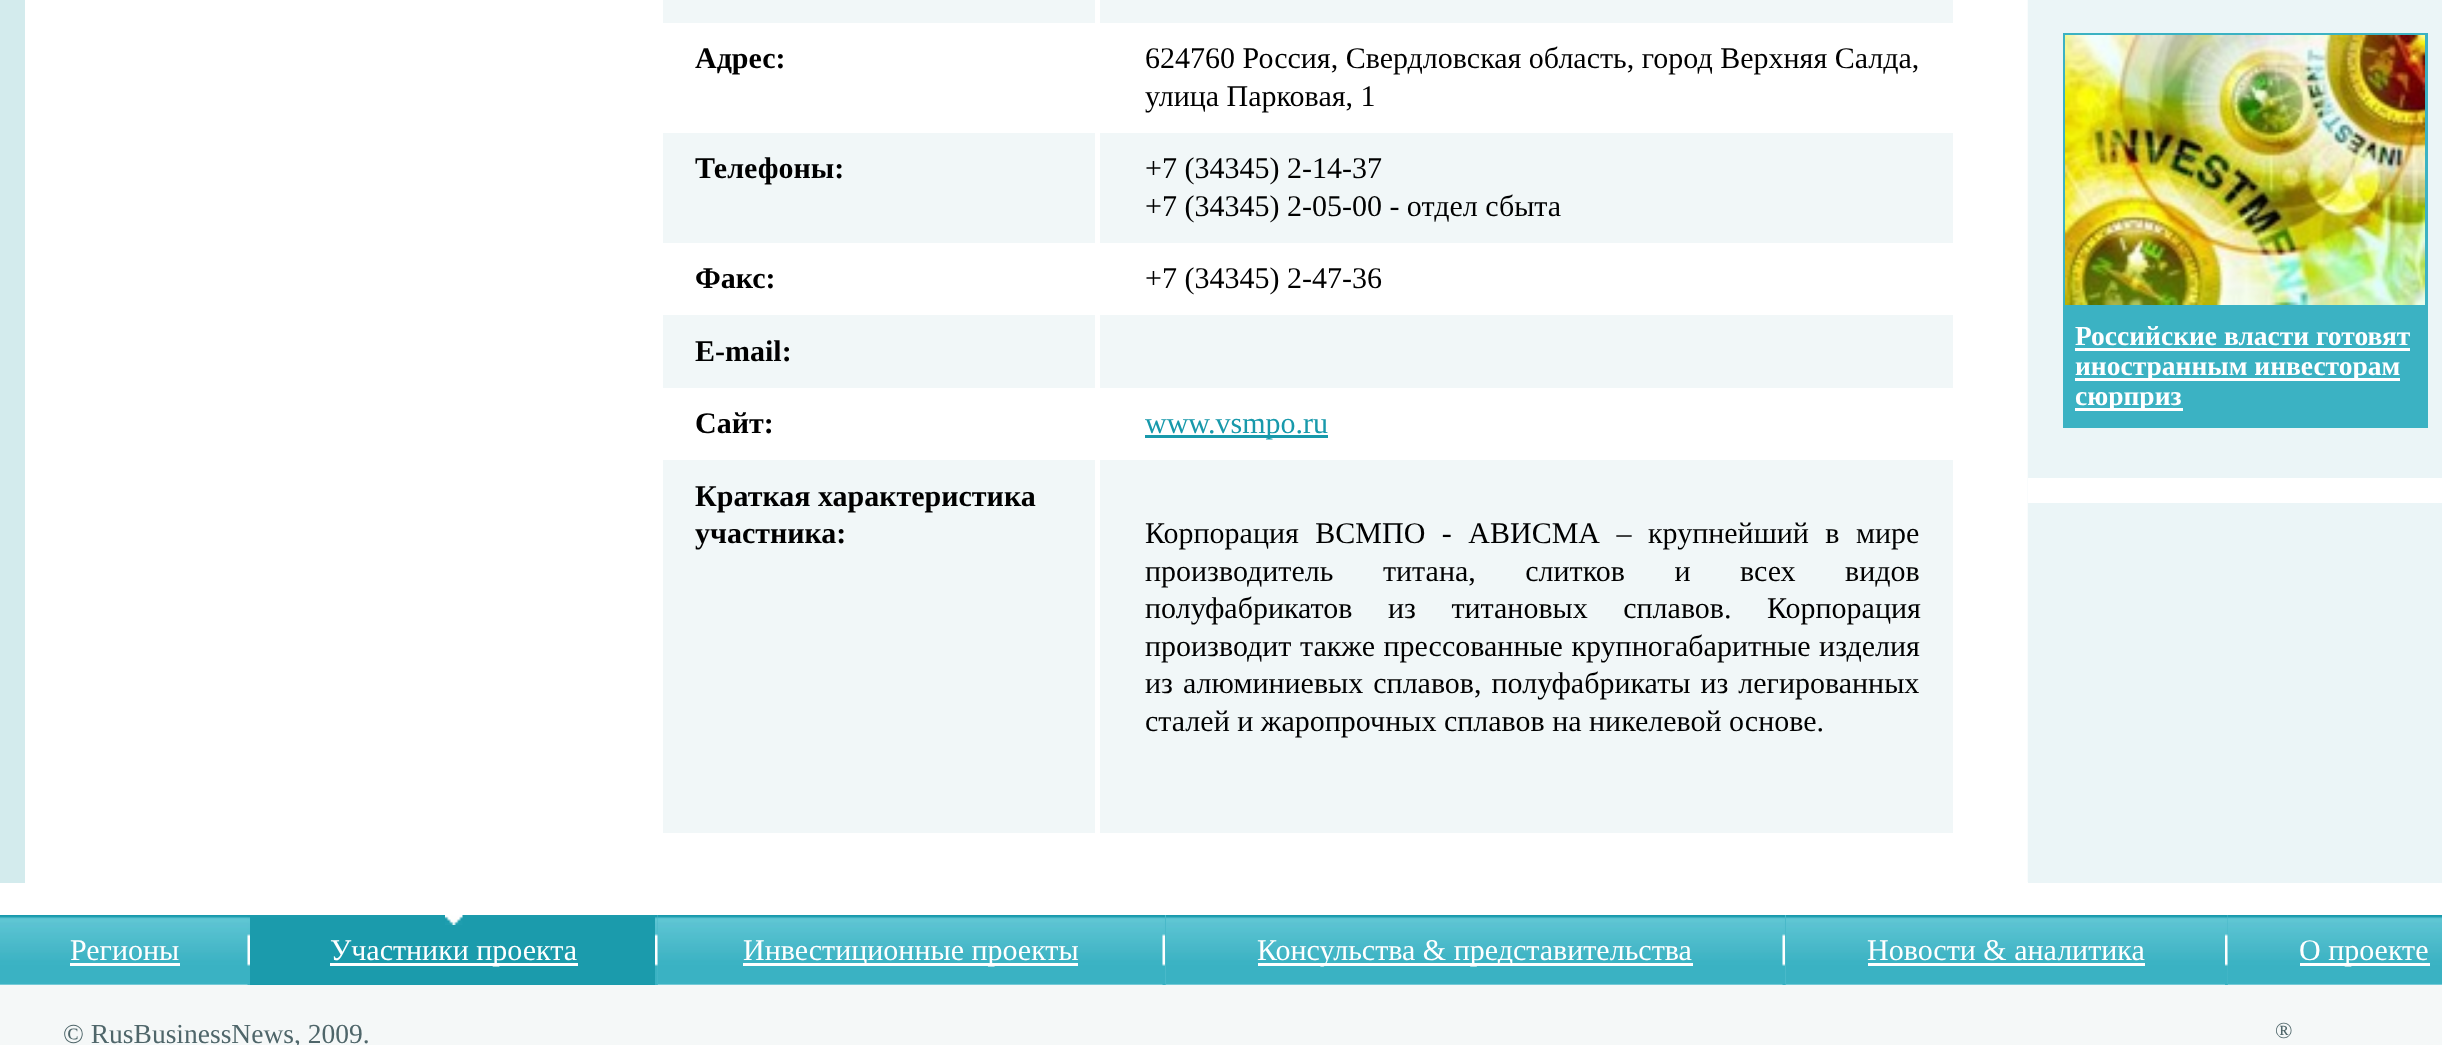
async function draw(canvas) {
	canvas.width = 2442;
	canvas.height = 1045;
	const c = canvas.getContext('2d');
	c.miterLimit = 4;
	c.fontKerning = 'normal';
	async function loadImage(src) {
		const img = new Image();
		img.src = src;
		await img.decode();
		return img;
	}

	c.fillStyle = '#fff';
	c.fillRect(0, 0, 2442, 1045);
	for (const [x, y, w, h, color] of [
		[0, 0, 25, 883, '#d3ebed'],
		[663, 0, 1290, 23, '#f1f7f8'],
		[1095, 0, 5, 23, '#fff'],
	]) {
		c.fillStyle = color;
		c.fillRect(x, y, w, h);
	}
	c.font = 'bold 30px Liberation Serif';
	c.fillStyle = '#000';
	c.fillText('Адрес:', 695, 68);
	c.font = '30px Liberation Serif';
	c.fillText('624760 Россия, Свердловская область, город Верхняя Салда,', 1145, 68);
	c.fillText('улица Парковая, 1', 1145, 106);
	c.fillStyle = '#f1f7f8';
	c.fillRect(663, 133, 1290, 110);
	c.fillStyle = '#fff';
	c.fillRect(1095, 133, 5, 110);
	c.font = 'bold 30px Liberation Serif';
	c.fillStyle = '#000';
	c.fillText('Телефоны:', 695, 178);
	c.font = '30px Liberation Serif';
	c.fillText('+7 (34345) 2-14-37', 1145, 178);
	c.fillText('+7 (34345) 2-05-00 - отдел сбыта', 1145, 216);
	c.font = 'bold 30px Liberation Serif';
	c.fillText('Факс:', 695, 288);
	c.font = '30px Liberation Serif';
	c.fillText('+7 (34345) 2-47-36', 1145, 288);
	c.fillStyle = '#f1f7f8';
	c.fillRect(663, 315, 1290, 73);
	c.fillStyle = '#fff';
	c.fillRect(1095, 315, 5, 73);
	c.font = 'bold 30px Liberation Serif';
	c.fillStyle = '#000';
	c.fillText('E-mail:', 695, 361);
	c.fillText('Сайт:', 695, 433);
	c.fillStyle = '#1899ab';
	c.fillRect(1145, 435, 183, 3);
	c.font = '30px Liberation Serif';
	c.fillText('www.vsmpo.ru', 1145, 433);
	c.fillStyle = '#f1f7f8';
	c.fillRect(663, 460, 1290, 373);
	c.fillStyle = '#fff';
	c.fillRect(1095, 460, 5, 373);
	c.font = 'bold 30px Liberation Serif';
	c.fillStyle = '#000';
	c.fillText('Краткая характеристика', 695, 506);
	c.fillText('участника:', 695, 543);
	c.wordSpacing = '9px';
	c.font = '30px Liberation Serif';
	c.fillText('Корпорация ВСМПО - АВИСМА – крупнейший в мире', 1145, 543);
	c.wordSpacing = '42px';
	c.fillText('производитель титана, слитков и всех видов', 1145, 581);
	c.wordSpacing = '28px';
	c.fillText('полуфабрикатов из титановых сплавов. Корпорация', 1145, 618);
	c.wordSpacing = '1px';
	c.fillText('производит также прессованные крупногабаритные изделия', 1145, 656);
	c.wordSpacing = '2.5px';
	c.fillText('из алюминиевых сплавов, полуфабрикаты из легированных', 1145, 693);
	c.wordSpacing = '0px';
	c.fillText('сталей и жаропрочных сплавов на никелевой основе.', 1145, 731);
	for (const [x, y, w, h, color] of [
		[2028, 0, 414, 883, '#ebf5f7'],
		[2027, 0, 1, 882, '#fafcfd'],
		[2063, 33, 365, 395, '#3bb2c3'],
	]) {
		c.fillStyle = color;
		c.fillRect(x, y, w, h);
	}
	c.drawImage(await loadImage('img1.png'), 2065, 35, 360, 270);
	c.font = 'bold 27.5px Liberation Serif';
	c.fillStyle = '#fff';
	c.fillText('Российские власти готовят', 2075, 345);
	c.fillRect(2075, 348, 335, 3);
	c.fillRect(2075, 378, 325, 3);
	c.fillText('иностранным инвесторам', 2075, 375);
	c.fillRect(2075, 408, 108, 3);
	c.fillText('сюрприз', 2075, 405);
	c.fillRect(2028, 478, 414, 25);
	c.drawImage(await loadImage('img2.png'), 0, 915, 2442, 70);
	c.font = '30px Liberation Serif';
	c.fillText('Регионы', 70, 960);
	c.fillRect(70, 963, 110, 3);
	c.drawImage(await loadImage('img3.png'), 247, 915, 3, 70);
	c.fillStyle = '#1b9bac';
	c.fillRect(250, 915, 405, 70);
	c.drawImage(await loadImage('img4.png'), 445, 915, 18, 10);
	c.fillStyle = '#fff';
	c.fillRect(330, 963, 248, 3);
	c.fillText('Участники проекта', 330, 960);
	c.fillStyle = '#49b9c9';
	c.fillRect(657, 915, 1, 70);
	c.drawImage(await loadImage('img5.png'), 655, 915, 3, 70);
	c.fillStyle = '#fff';
	c.fillRect(743, 963, 335, 3);
	c.fillText('Инвестиционные проекты', 743, 960);
	c.fillStyle = '#49b9c9';
	c.fillRect(1165, 915, 1, 70);
	c.drawImage(await loadImage('img3.png'), 1162, 915, 3, 70);
	c.fillStyle = '#fff';
	c.fillRect(1258, 963, 435, 3);
	c.fillText('Консульства & представительства', 1257, 960);
	c.fillStyle = '#49b9c9';
	c.fillRect(1785, 915, 1, 70);
	c.drawImage(await loadImage('img3.png'), 1782, 915, 3, 70);
	c.fillStyle = '#fff';
	c.fillText('Новости & аналитика', 1867, 960);
	c.fillRect(1868, 963, 277, 3);
	c.fillStyle = '#49b9c9';
	c.fillRect(2227, 915, 1, 70);
	c.drawImage(await loadImage('img5.png'), 2225, 915, 3, 70);
	c.fillStyle = '#fff';
	c.fillRect(2300, 963, 130, 3);
	c.fillText('О проекте', 2299, 960);
	c.fillStyle = '#f5f8f8';
	c.fillRect(0, 985, 2442, 60);
	c.font = '27.5px Liberation Serif';
	c.fillStyle = '#4f666a';
	c.fillText('© RusBusinessNews, 2009.', 63, 1043);
	c.font = '23px Liberation Serif';
	c.fillText('®', 2275, 1038);
}

draw(document.querySelector('canvas'));
